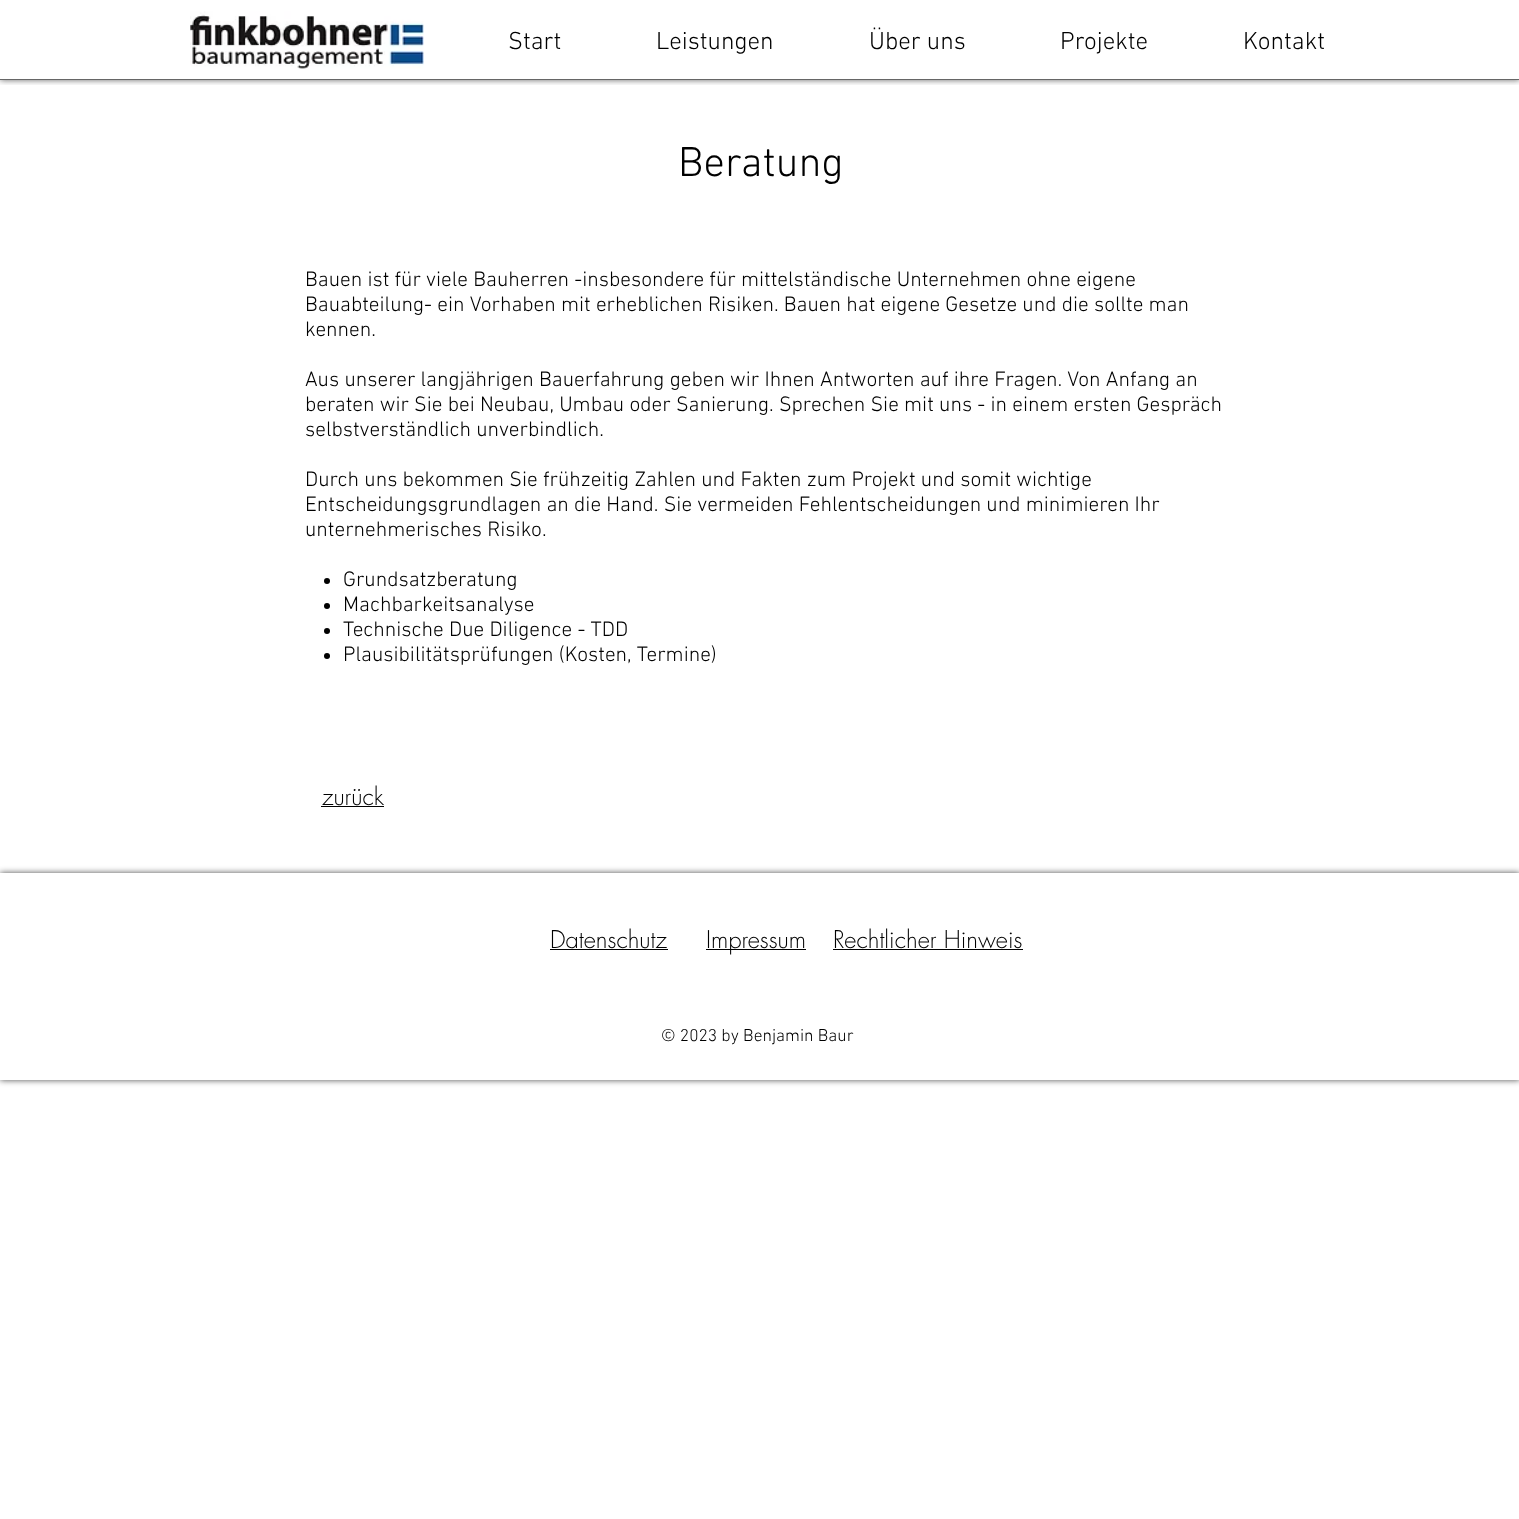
async function draw(canvas) {
	canvas.width = 1519;
	canvas.height = 1519;
	const c = canvas.getContext('2d');
	c.miterLimit = 4;
	c.fontKerning = 'normal';
	async function loadImage(src) {
		const img = new Image();
		img.src = src;
		await img.decode();
		return img;
	}

	c.fillStyle = '#fff';
	c.fillRect(0, 0, 1519, 1519);
	c.save();
	c.beginPath();
	c.rect(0, 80, 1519, 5);
	c.clip();
	c.fillStyle = '#00000099';
	c.filter = 'blur(3px)';
	c.beginPath();
	c.rect(0, 0, 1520, 80);
	c.fill();
	c.filter = 'none';
	c.restore();
	c.fillStyle = '#666';
	c.fillRect(0, 79, 1519, 1);
	c.drawImage(await loadImage('img1.png'), 190, 11, 234, 58);
	c.font = '300 25px "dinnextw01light"';
	c.fillStyle = '#000';
	for (const [text, x, y] of [
		['Start', 508, 49],
		['Leistungen', 656, 49],
		['Über uns', 869, 49],
		['Projekte', 1060, 49],
		['Kontakt', 1243, 49],
	]) {
		c.fillText(text, x, y);
	}
	c.font = '300 42.5px "dinnextw01light"';
	c.fillText('Beratung', 678, 176);
	c.font = '300 21.25px "dinnextw01light"';
	for (const [text, x, y] of [
		['Bauen ist für viele Bauherren -insbesondere für mittelständische Unternehmen ohne eigene', 305, 286],
		['Bauabteilung- ein Vorhaben mit erheblichen Risiken. Bauen hat eigene Gesetze und die sollte man', 305, 311],
		['kennen.', 305, 336],
		['Aus unserer langjährigen Bauerfahrung geben wir Ihnen Antworten auf ihre Fragen. Von Anfang an', 305, 386],
		['beraten wir Sie bei Neubau, Umbau oder Sanierung. Sprechen Sie mit uns - in einem ersten Gespräch', 305, 411],
		['selbstverständlich unverbindlich.', 305, 436],
		['Durch uns bekommen Sie frühzeitig Zahlen und Fakten zum Projekt und somit wichtige', 305, 486],
		['Entscheidungsgrundlagen an die Hand. Sie vermeiden Fehlentscheidungen und minimieren Ihr', 305, 511],
		['unternehmerisches Risiko.', 305, 536],
	]) {
		c.fillText(text, x, y);
	}
	c.beginPath();
	c.arc(327, 581, 3, 0, 2 * Math.PI);
	c.fill();
	c.fillText('Grundsatzberatung', 343, 586);
	c.beginPath();
	c.arc(327, 606, 3, 0, 2 * Math.PI);
	c.fill();
	c.fillText('Machbarkeitsanalyse', 343, 611);
	c.beginPath();
	c.arc(327, 631, 3, 0, 2 * Math.PI);
	c.fill();
	c.fillText('Technische Due Diligence - TDD', 343, 636);
	c.beginPath();
	c.arc(327, 656, 3, 0, 2 * Math.PI);
	c.fill();
	c.fillText('Plausibilitätsprüfungen (Kosten, Termine)', 343, 661);
	c.font = '300 23.75px futura';
	c.fillText('zurück', 322, 805);
	c.fillRect(321, 806, 63, 1);
	c.save();
	c.beginPath();
	c.moveTo(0, 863);
	c.lineTo(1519, 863);
	c.lineTo(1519, 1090);
	c.lineTo(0, 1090);
	c.closePath();
	c.moveTo(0, 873);
	c.lineTo(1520, 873);
	c.lineTo(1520, 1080);
	c.lineTo(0, 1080);
	c.closePath();
	c.clip('evenodd');
	c.fillStyle = '#000000b3';
	c.filter = 'blur(3px)';
	c.beginPath();
	c.rect(0, 873, 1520, 207);
	c.fill();
	c.filter = 'none';
	c.restore();
	c.fillText('Datenschutz', 550, 948);
	c.fillRect(550, 949, 118, 1);
	c.fillRect(706, 949, 100, 1);
	c.fillText('Impressum', 706, 948);
	c.fillText('Rechtlicher Hinweis', 833, 948);
	c.fillRect(833, 949, 190, 1);
	c.font = '300 17.5px "dinnextw01light"';
	c.fillText('© 2023 by Benjamin Baur', 661, 1041);
}

draw(document.querySelector('canvas'));
